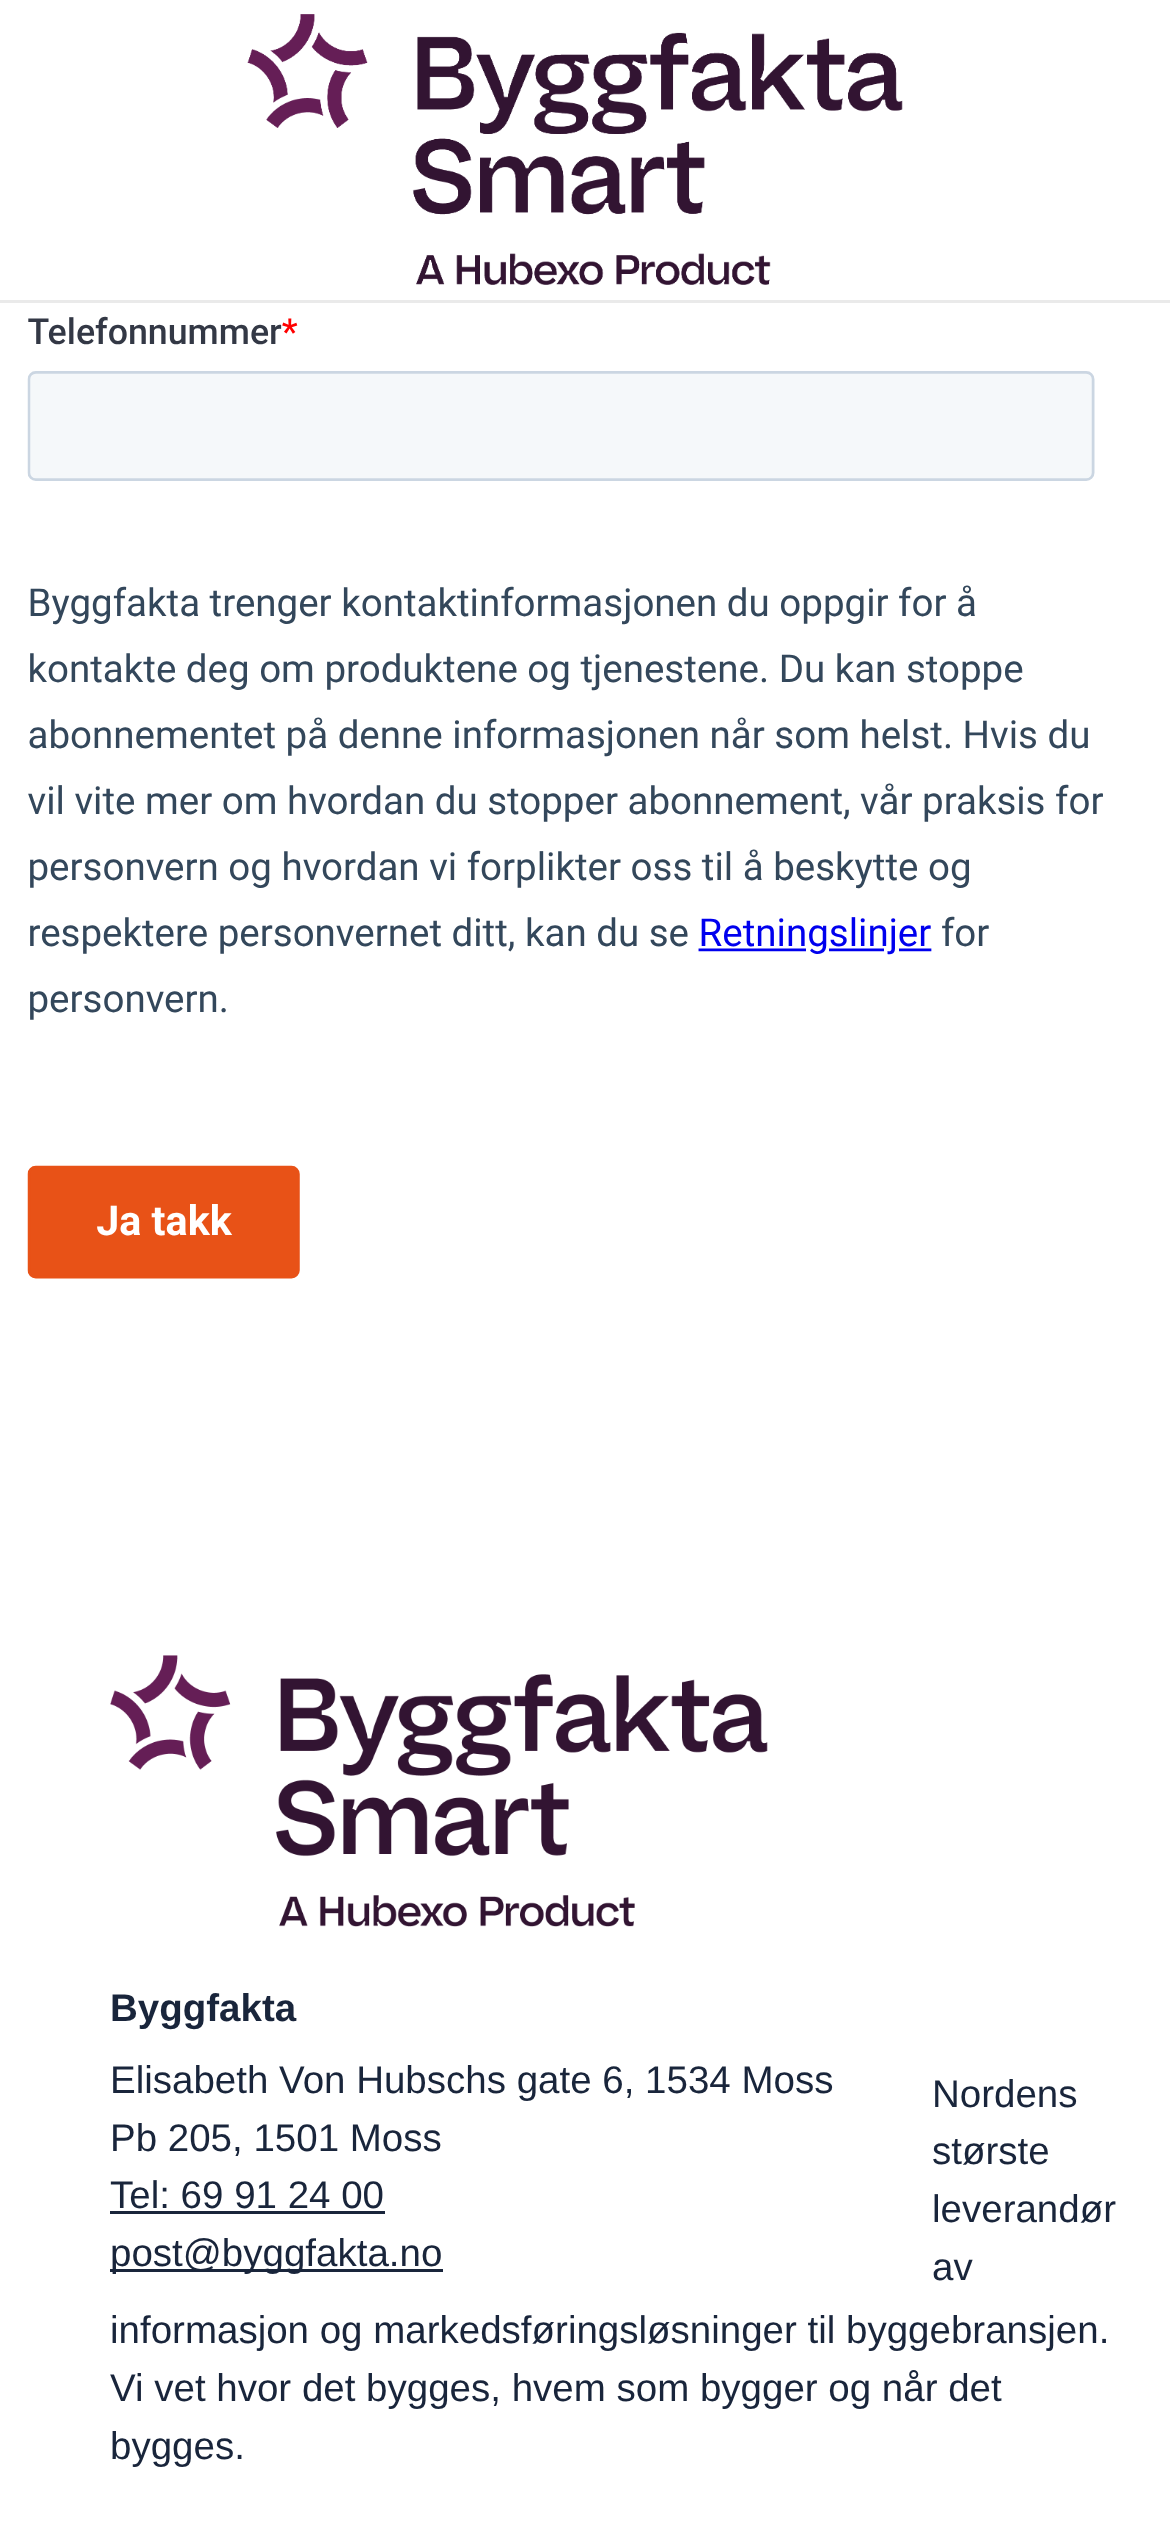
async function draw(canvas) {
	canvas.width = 1170;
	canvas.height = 2529;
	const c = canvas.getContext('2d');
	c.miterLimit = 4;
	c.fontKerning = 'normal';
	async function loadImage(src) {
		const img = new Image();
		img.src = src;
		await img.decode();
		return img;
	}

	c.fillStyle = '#fff';
	c.fillRect(0, 0, 1170, 2529);
	c.fillStyle = '#eaeaea';
	c.fillRect(0, 300, 1170, 3);
	c.drawImage(await loadImage('img1.png'), 247, 14, 656, 271);
	c.drawImage(await loadImage('img2.png'), 27, 316, 1076, 963);
	c.drawImage(await loadImage('img3.png'), 110, 1655, 658, 272);
	c.font = 'bold 38.5px Liberation Sans';
	c.fillStyle = '#19253b';
	c.fillText('Byggfakta', 110, 2021);
	c.font = '38.5px Liberation Sans';
	for (const [text, x, y] of [
		['Elisabeth Von Hubschs gate 6, 1534 Moss', 110, 2093],
		['Pb 205, 1501 Moss', 110, 2151],
		['Tel: 69 91 24 00', 110, 2208],
	]) {
		c.fillText(text, x, y);
	}
	c.fillRect(110, 2211, 275, 3);
	c.fillRect(110, 2269, 333, 3);
	for (const [text, x, y] of [
		['post@byggfakta.no', 110, 2266],
		['Nordens', 932, 2107],
		['største', 932, 2164],
		['leverandør', 932, 2222],
		['av', 932, 2280],
		['informasjon og markedsføringsløsninger til byggebransjen.', 110, 2343],
		['Vi vet hvor det bygges, hvem som bygger og når det', 110, 2401],
		['bygges.', 110, 2459],
	]) {
		c.fillText(text, x, y);
	}
}

draw(document.querySelector('canvas'));
